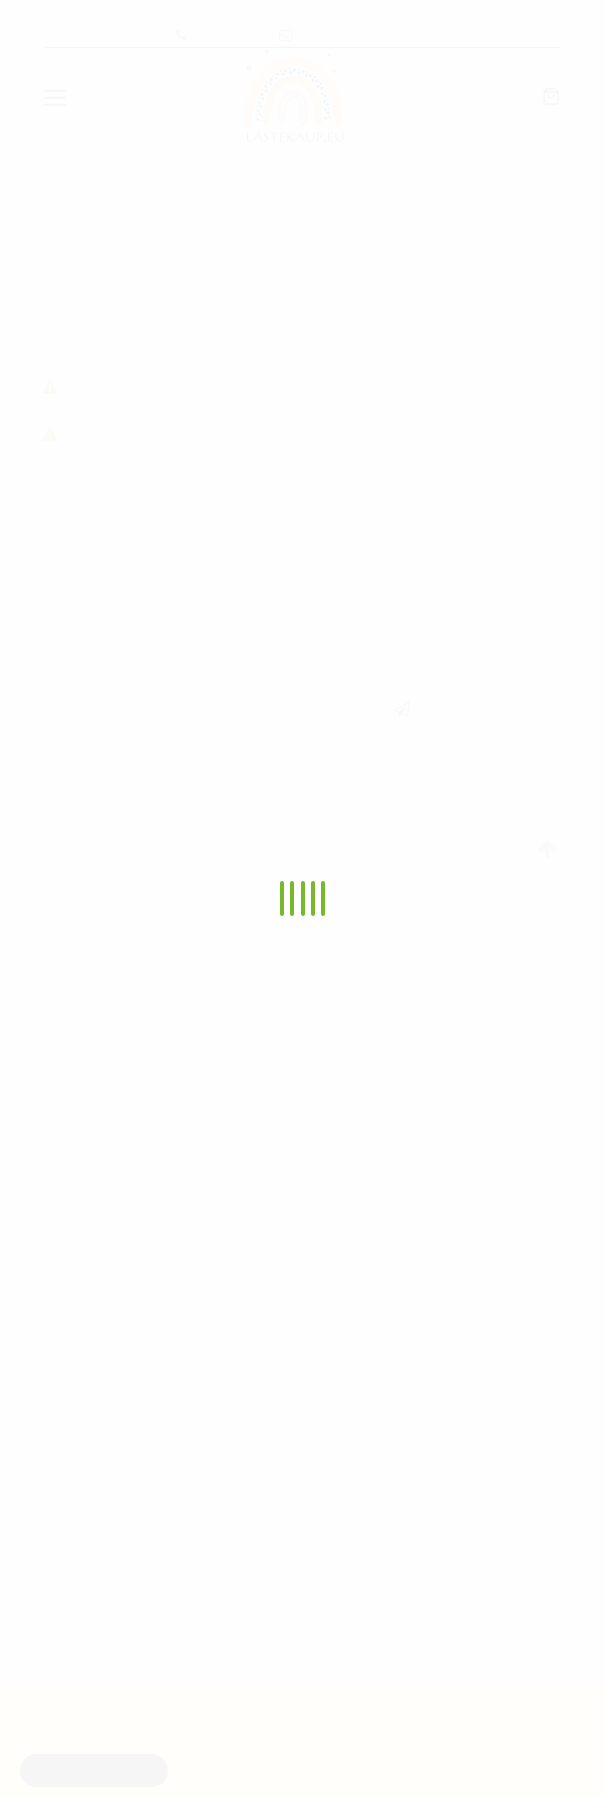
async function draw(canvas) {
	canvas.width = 605;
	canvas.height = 1797;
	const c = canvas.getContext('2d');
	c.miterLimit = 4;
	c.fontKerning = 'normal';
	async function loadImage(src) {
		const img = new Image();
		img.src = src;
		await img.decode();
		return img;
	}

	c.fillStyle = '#fefefe';
	c.fillRect(0, 0, 605, 1797);
	c.fillStyle = '#f5f5f5';
	c.fillRect(45, 47, 515, 1);
	c.drawImage(await loadImage('img1.png'), 176, 29, 11, 11);
	c.drawImage(await loadImage('img2.png'), 279, 30, 14, 11);
	c.drawImage(await loadImage('img3.png'), 44, 89, 22, 17);
	c.drawImage(await loadImage('img4.png'), 235, 49, 112, 93);
	c.drawImage(await loadImage('img5.png'), 543, 88, 16, 17);
	c.drawImage(await loadImage('img6.png'), 88, 301, 6, 9);
	c.drawImage(await loadImage('img7.png'), 42, 380, 16, 14);
	c.drawImage(await loadImage('img7.png'), 42, 427, 16, 14);
	c.drawImage(await loadImage('img8.png'), 394, 701, 17, 17);
	c.drawImage(await loadImage('img9.png'), 538, 841, 18, 17);
	c.fillStyle = '#79b82d';
	c.beginPath();
	c.roundRect(280, 881, 4, 35, 2);
	c.fill();
	c.beginPath();
	c.roundRect(290, 881, 4, 35, 2);
	c.fill();
	c.beginPath();
	c.roundRect(301, 881, 4, 35, 2);
	c.fill();
	c.beginPath();
	c.roundRect(311, 881, 4, 35, 2);
	c.fill();
	c.beginPath();
	c.roundRect(321, 881, 4, 35, 2);
	c.fill();
	c.fillStyle = '#fffefb';
	c.fillRect(0, 1684, 605, 113);
	c.fillStyle = '#f6f6f6';
	c.beginPath();
	c.roundRect(20, 1754, 148, 33, 16.5);
	c.fill();
}

draw(document.querySelector('canvas'));
